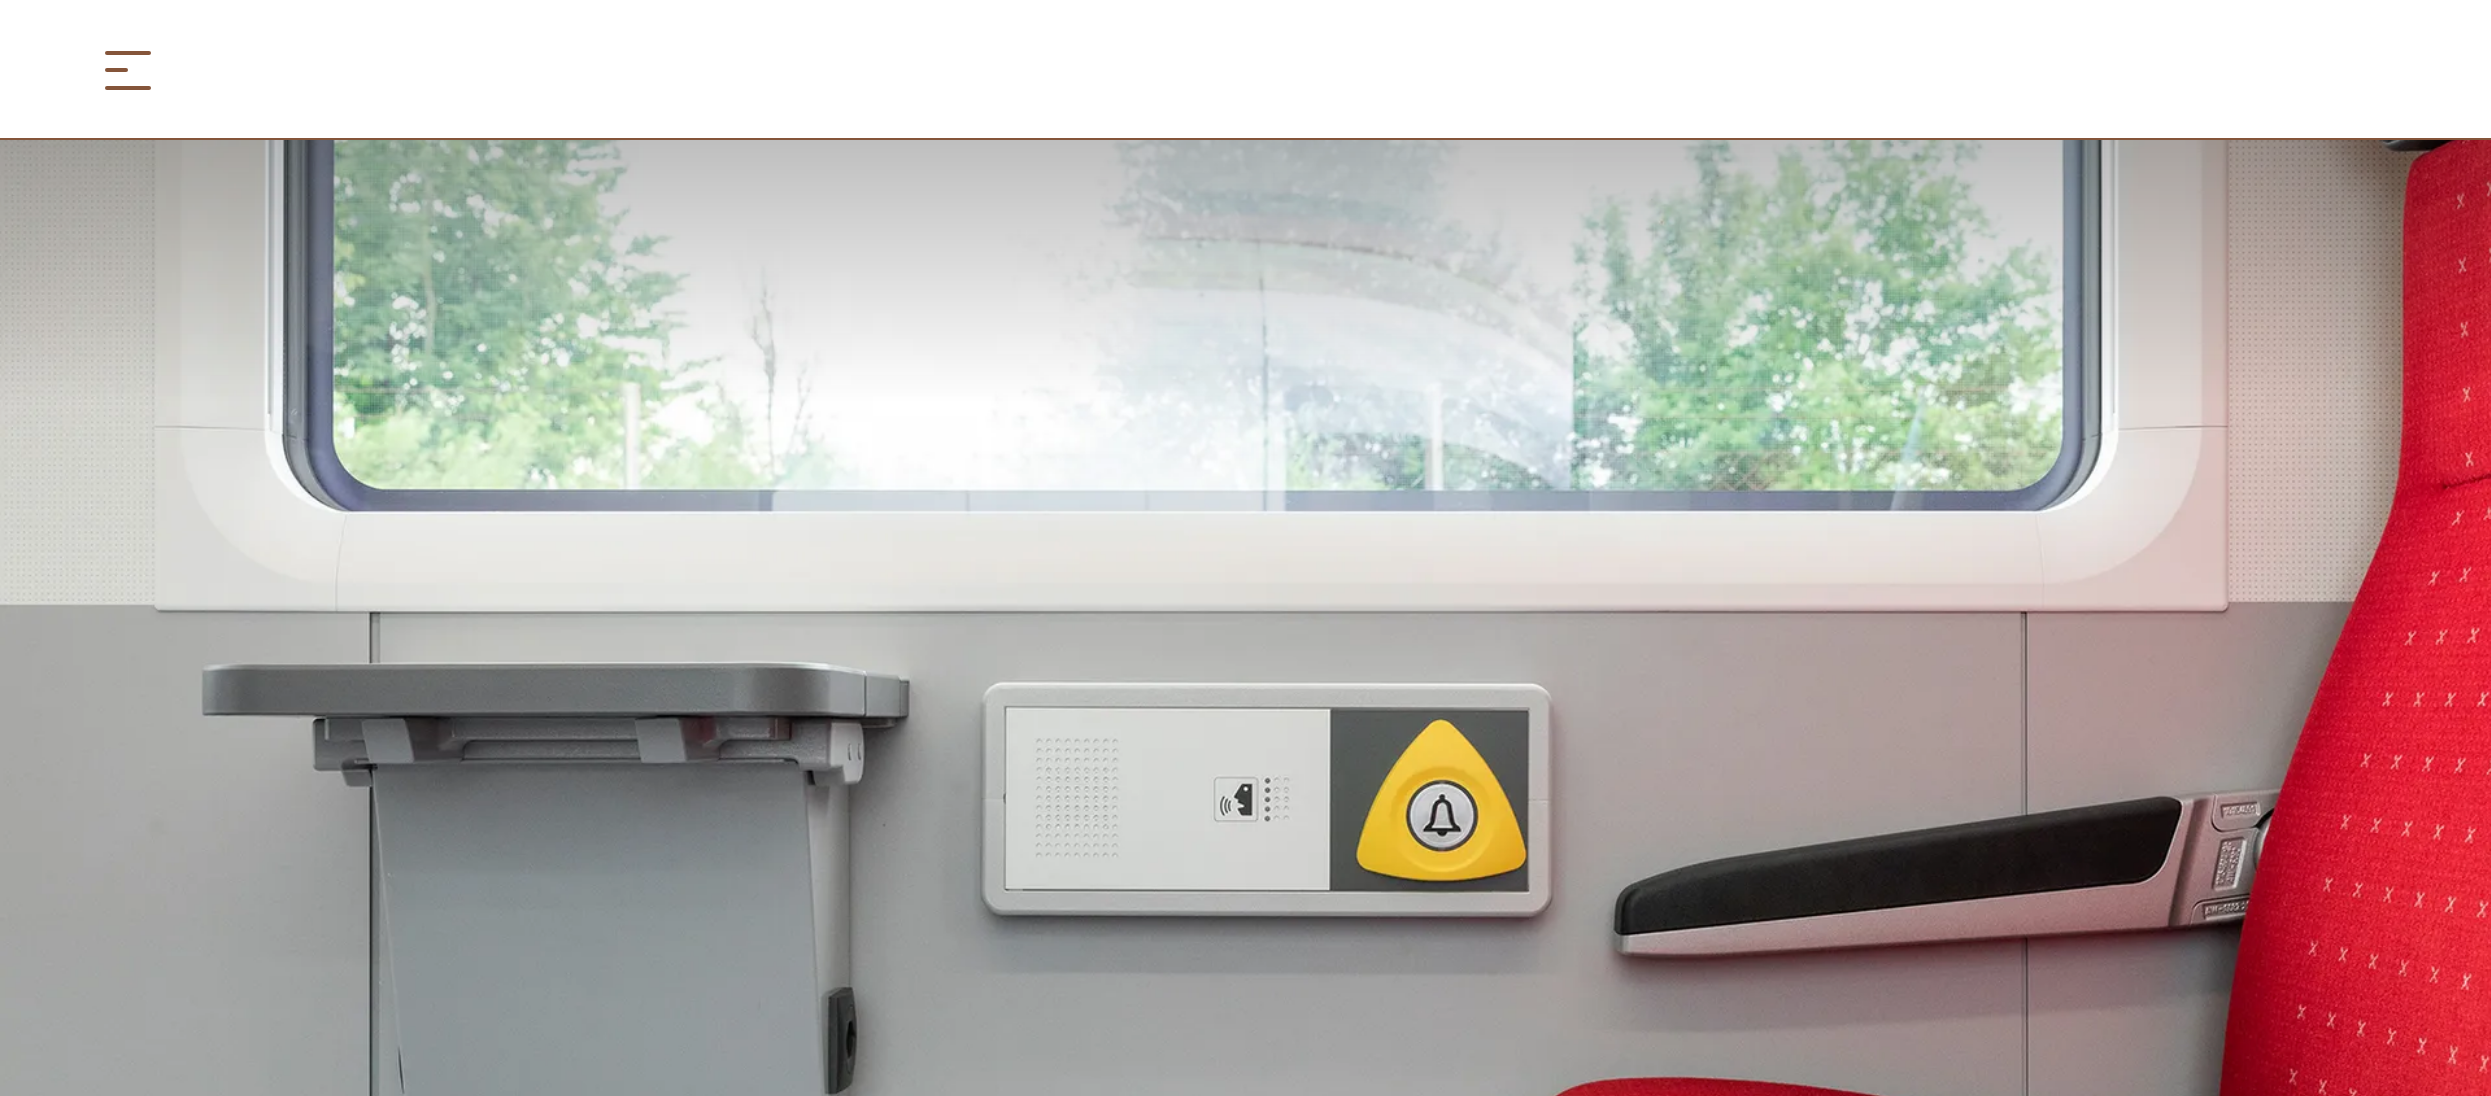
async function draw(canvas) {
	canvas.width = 2491;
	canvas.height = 1096;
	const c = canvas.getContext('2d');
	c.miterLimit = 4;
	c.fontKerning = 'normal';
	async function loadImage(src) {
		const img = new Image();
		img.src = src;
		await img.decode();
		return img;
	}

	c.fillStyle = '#fff';
	c.fillRect(0, 0, 2491, 1096);
	c.fillStyle = '#85553a';
	c.fillRect(0, 138, 2491, 2);
	c.beginPath();
	c.roundRect(105, 51, 46, 4, 2);
	c.fill();
	c.beginPath();
	c.roundRect(105, 68, 23, 4, 2);
	c.fill();
	c.beginPath();
	c.roundRect(105, 86, 46, 4, 2);
	c.fill();
	c.drawImage(await loadImage('img1.png'), 0, 140, 2491, 956);
}

draw(document.querySelector('canvas'));
